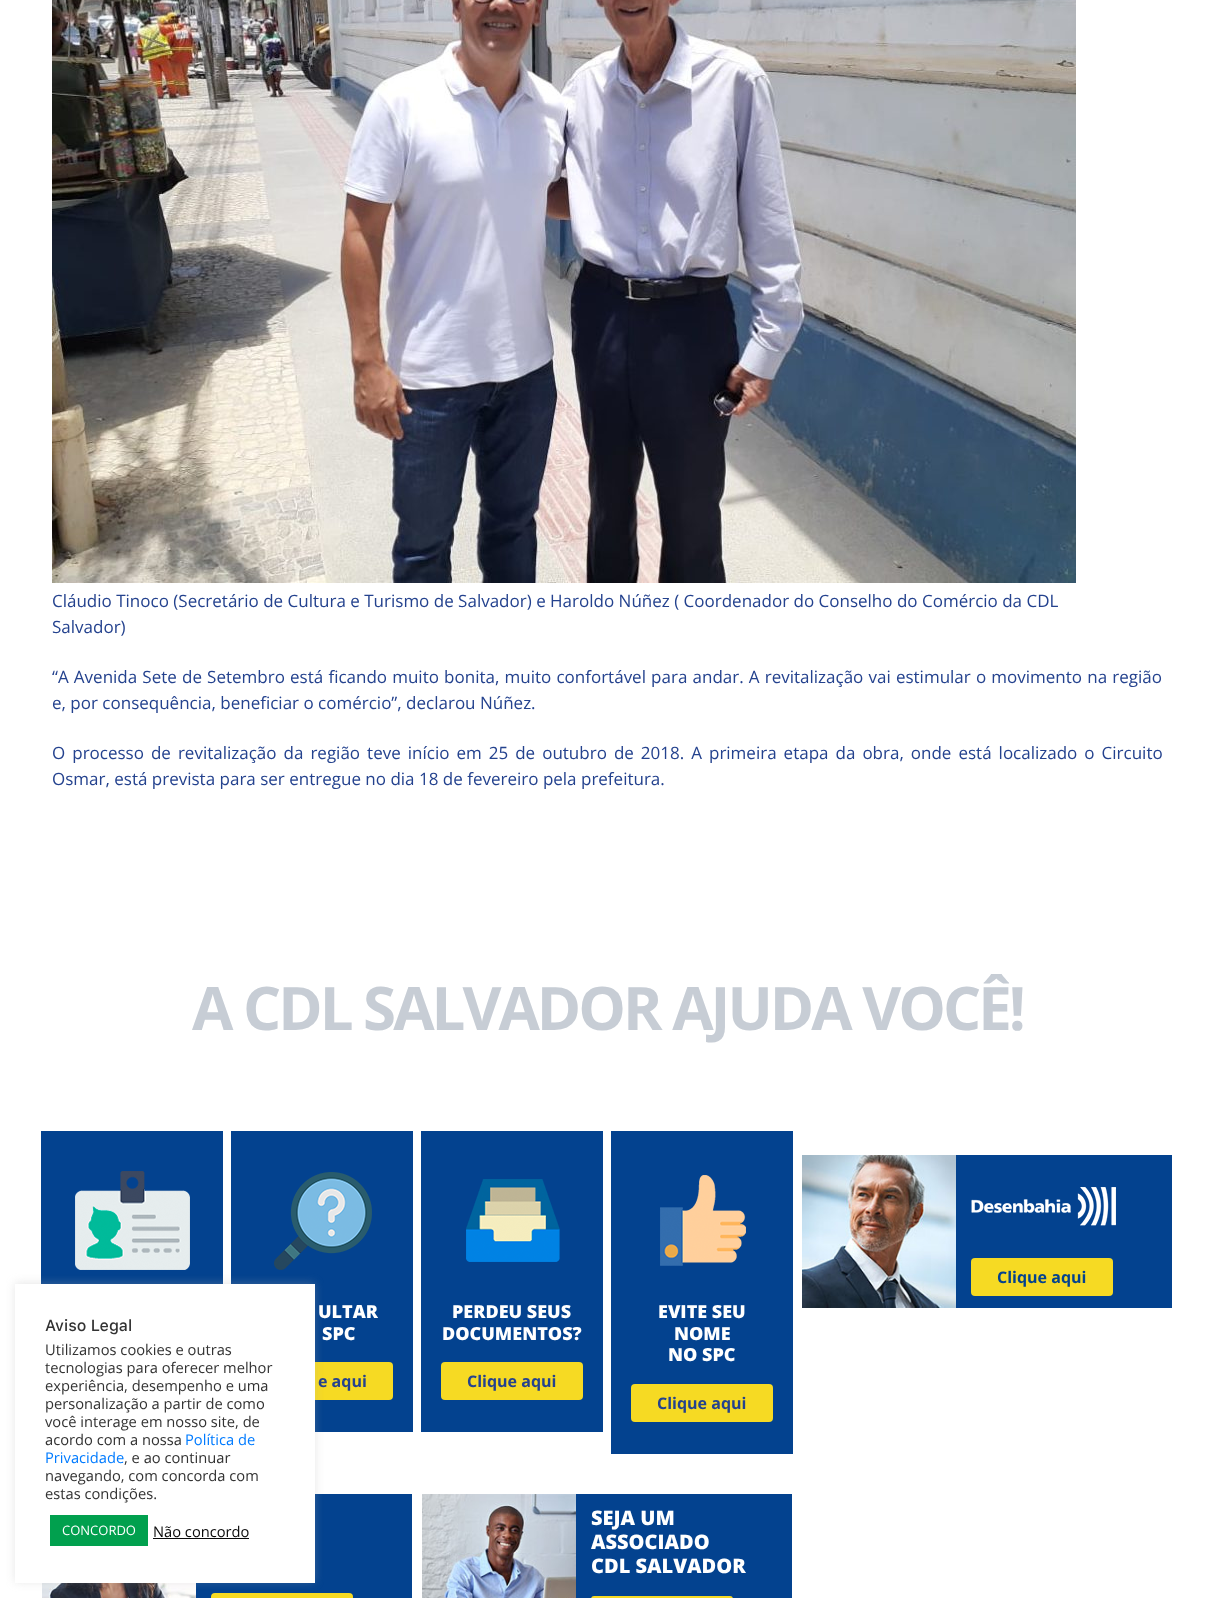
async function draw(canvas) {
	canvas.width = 1214;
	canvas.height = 1598;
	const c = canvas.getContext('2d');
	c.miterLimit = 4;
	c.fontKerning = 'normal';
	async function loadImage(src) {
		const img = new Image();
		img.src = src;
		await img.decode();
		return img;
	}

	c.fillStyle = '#fff';
	c.fillRect(0, 0, 1214, 1598);
	c.drawImage(await loadImage('img1.png'), 52, 0, 1024, 583);
	c.font = '17px Open Sans';
	c.fillStyle = '#24428e';
	c.fillText('Cláudio Tinoco (Secretário de Cultura e Turismo de Salvador) e Haroldo Núñez ( Coordenador do Conselho do Comércio da CDL', 52, 607);
	c.fillText('Salvador)', 52, 633);
	c.wordSpacing = '0.75px';
	c.fillText('“A Avenida Sete de Setembro está ficando muito bonita, muito confortável para andar. A revitalização vai estimular o movimento na região', 52, 683);
	c.wordSpacing = '0px';
	c.fillText('e, por consequência, beneficiar o comércio”, declarou Núñez.', 52, 709);
	c.wordSpacing = '2.6px';
	c.fillText('O processo de revitalização da região teve início em 25 de outubro de 2018. A primeira etapa da obra, onde está localizado o Circuito', 52, 759);
	c.wordSpacing = '0px';
	c.fillText('Osmar, está prevista para ser entregue no dia 18 de fevereiro pela prefeitura.', 52, 785);
	c.fillStyle = '#03428f';
	c.fillRect(41, 1131, 182, 153);
	c.drawImage(await loadImage('img2.png'), 75, 1171, 115, 99);
	c.fillRect(231, 1131, 182, 301);
	c.drawImage(await loadImage('img5.png'), 274, 1172, 98, 98);
	c.fillStyle = '#f6da23';
	c.beginPath();
	c.roundRect(251, 1362, 142, 38, 4);
	c.fill();
	c.fillStyle = '#03428f';
	c.fillRect(196, 1494, 216, 104);
	c.drawImage(await loadImage('img8.png'), 42, 1583, 154, 15);
	c.fillStyle = '#f6da23';
	c.beginPath();
	c.roundRect(211, 1593, 142, 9, 4);
	c.fill();
	c.fillStyle = '#acabab4d';
	c.filter = 'blur(5px)';
	c.beginPath();
	c.rect(15, 1283, 300, 299);
	c.fill();
	c.filter = 'none';
	c.fillStyle = '#fff';
	c.fillRect(15, 1284, 300, 299);
	c.font = '500 16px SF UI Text';
	c.fillStyle = '#333';
	c.fillText('Aviso Legal', 45, 1331);
	c.font = '14.7px Open Sans';
	for (const [text, x, y] of [
		['Utilizamos cookies e outras', 45, 1355],
		['tecnologias para oferecer melhor', 45, 1373],
		['experiência, desempenho e uma', 45, 1391],
		['personalização a partir de como', 45, 1409],
		['você interage em nosso site, de', 45, 1427],
		['acordo com a nossa', 45, 1445],
	]) {
		c.fillText(text, x, y);
	}
	c.fillStyle = '#007bff';
	c.fillText('Política de', 185, 1445);
	c.fillText('Privacidade', 45, 1463);
	c.fillStyle = '#333';
	for (const [text, x, y] of [
		[', e ao continuar', 124, 1463],
		['navegando, com concorda com', 45, 1481],
		['estas condições.', 45, 1499],
	]) {
		c.fillText(text, x, y);
	}
	c.fillStyle = '#01a04e';
	c.fillRect(50, 1515, 98, 31);
	c.font = '13px Open Sans';
	c.fillStyle = '#fff';
	c.fillText('CONCORDO', 62, 1535);
	c.font = '14.7px Open Sans';
	c.fillStyle = '#0a0a0a';
	c.fillText('Não concordo', 153, 1537);
	c.fillRect(153, 1538, 96, 1);
	c.letterSpacing = '-3px';
	c.font = 'bold 60px Open Sans';
	c.fillStyle = '#c7cdd5';
	c.fillText('A CDL SALVADOR AJUDA VOCÊ!', 192, 1030);
	c.fillStyle = '#03428f';
	c.fillRect(956, 1155, 216, 153);
	c.drawImage(await loadImage('img3.png'), 802, 1155, 154, 153);
	c.drawImage(await loadImage('img4.png'), 971, 1187, 145, 39);
	c.fillStyle = '#f6da23';
	c.beginPath();
	c.roundRect(971, 1258, 142, 38, 4);
	c.fill();
	c.letterSpacing = '0px';
	c.font = 'bold 16px Open Sans';
	c.fillStyle = '#03428f';
	c.fillText('Clique aqui', 997, 1283);
	c.font = '800 18px Open Sans';
	c.fillStyle = '#fff';
	c.fillText('ULTAR', 318, 1318);
	c.fillText('SPC', 322, 1340);
	c.font = 'bold 16px Open Sans';
	c.fillStyle = '#24428e';
	c.fillText('e aqui', 318, 1387);
	c.fillStyle = '#03428f';
	c.fillRect(421, 1131, 182, 301);
	c.drawImage(await loadImage('img6.png'), 466, 1179, 94, 83);
	c.font = '800 18px Open Sans';
	c.fillStyle = '#fff';
	c.fillText('PERDEU SEUS', 452, 1318);
	c.fillText('DOCUMENTOS?', 442, 1340);
	c.fillStyle = '#f6da23';
	c.beginPath();
	c.roundRect(441, 1362, 142, 38, 4);
	c.fill();
	c.font = 'bold 16px Open Sans';
	c.fillStyle = '#24428e';
	c.fillText('Clique aqui', 467, 1387);
	c.fillStyle = '#03428f';
	c.fillRect(611, 1131, 182, 323);
	c.drawImage(await loadImage('img7.png'), 660, 1175, 86, 91);
	c.font = '800 18px Open Sans';
	c.fillStyle = '#fff';
	for (const [text, x, y] of [
		['EVITE SEU', 658, 1318],
		['NOME', 674, 1340],
		['NO SPC', 668, 1361],
	]) {
		c.fillText(text, x, y);
	}
	c.fillStyle = '#f6da23';
	c.beginPath();
	c.roundRect(631, 1384, 142, 38, 4);
	c.fill();
	c.font = 'bold 16px Open Sans';
	c.fillStyle = '#24428e';
	c.fillText('Clique aqui', 657, 1409);
	c.fillStyle = '#03428f';
	c.fillRect(576, 1494, 216, 104);
	c.drawImage(await loadImage('img9.png'), 422, 1494, 154, 104);
	c.font = '800 20px Open Sans';
	c.fillStyle = '#fff';
	for (const [text, x, y] of [
		['SEJA UM', 591, 1525],
		['ASSOCIADO', 591, 1549],
		['CDL SALVADOR', 591, 1573],
	]) {
		c.fillText(text, x, y);
	}
	c.fillStyle = '#f6da23';
	c.beginPath();
	c.roundRect(591, 1596, 142, 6, 4);
	c.fill();
}

draw(document.querySelector('canvas'));
